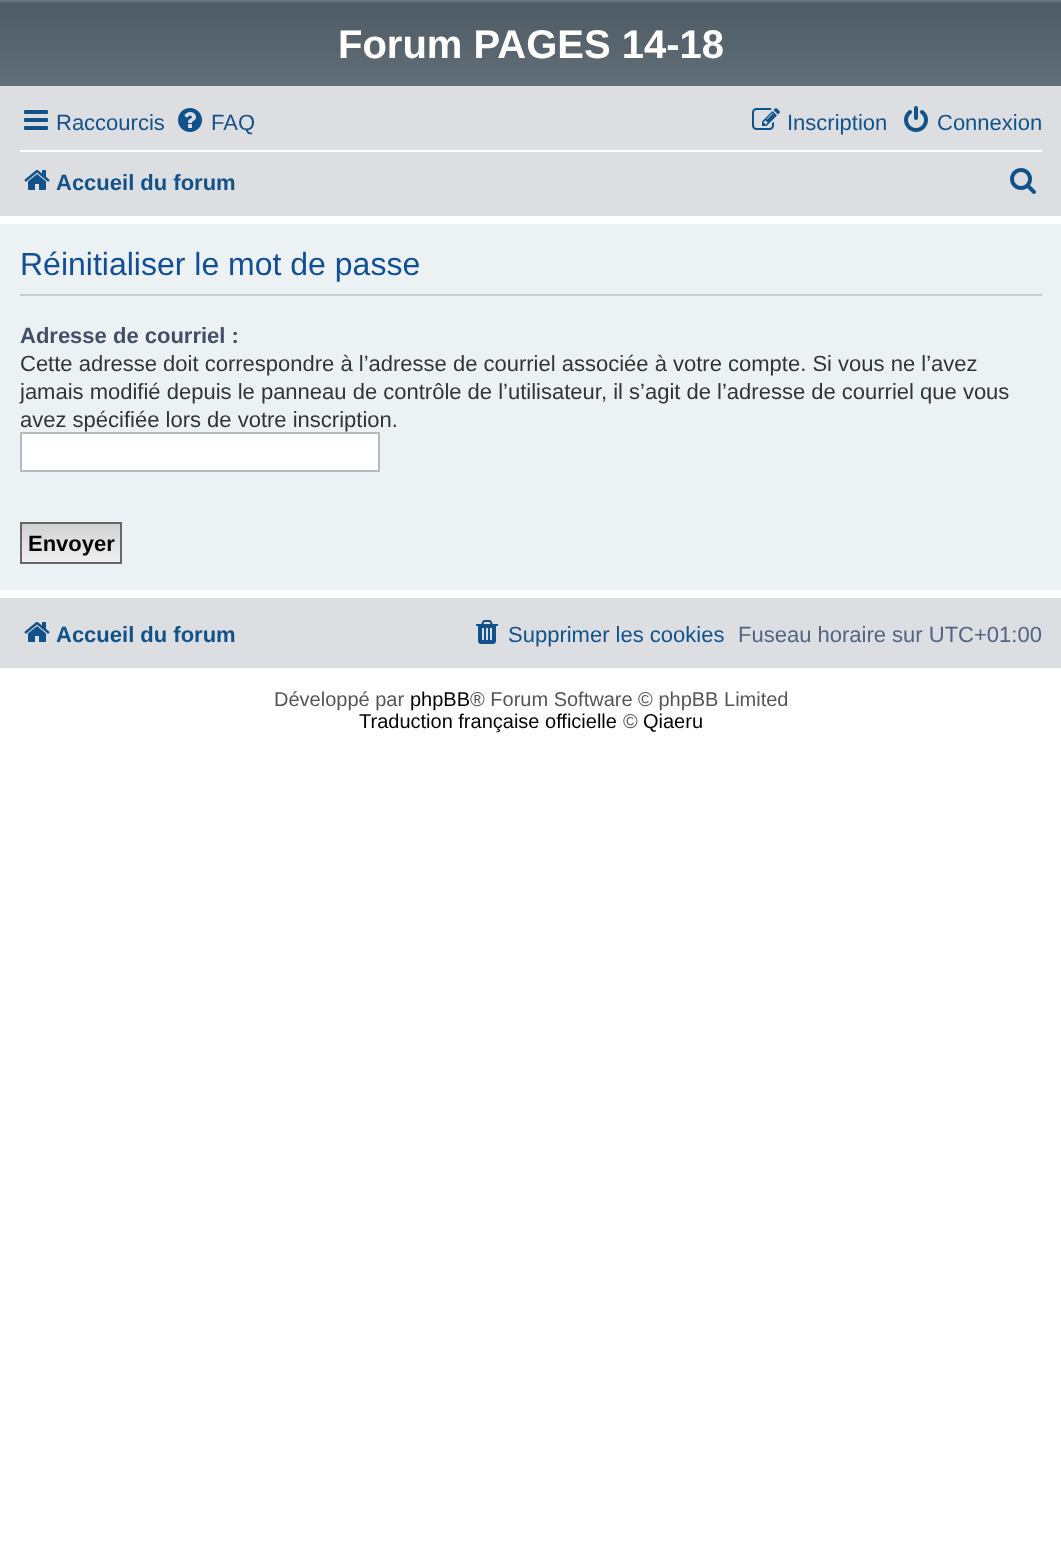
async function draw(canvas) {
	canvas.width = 1061;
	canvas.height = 1565;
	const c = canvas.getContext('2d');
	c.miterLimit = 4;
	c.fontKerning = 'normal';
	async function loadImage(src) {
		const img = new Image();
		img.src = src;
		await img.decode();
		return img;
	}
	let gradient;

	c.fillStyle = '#fff';
	c.fillRect(0, 0, 1061, 1565);
	c.drawImage(await loadImage('img1.png'), 0, 0, 1061, 86);
	c.font = 'bold 40px Liberation Sans';
	c.fillText('Forum PAGES 14-18', 338, 58);
	c.fillStyle = '#dcdee2';
	c.fillRect(0, 86, 1061, 130);
	c.drawImage(await loadImage('img2.png'), 24, 110, 24, 20);
	c.font = '22px Liberation Sans';
	c.fillStyle = '#105289';
	c.fillText('Raccourcis', 56, 130);
	c.drawImage(await loadImage('img3.png'), 178, 108, 24, 24);
	c.fillText('FAQ', 211, 130);
	c.drawImage(await loadImage('img4.png'), 752, 108, 28, 22);
	c.fillText('Inscription', 787, 130);
	c.drawImage(await loadImage('img5.png'), 904, 106, 24, 26);
	c.fillText('Connexion', 937, 130);
	c.fillStyle = '#fff';
	c.fillRect(20, 150, 1022, 2);
	c.drawImage(await loadImage('img6.png'), 24, 170, 26, 20);
	c.font = 'bold 22px Liberation Sans';
	c.fillStyle = '#105289';
	c.fillText('Accueil du forum', 56, 190);
	c.drawImage(await loadImage('img7.png'), 1010, 168, 26, 26);
	c.fillStyle = '#ecf1f3';
	c.fillRect(0, 224, 1061, 366);
	c.fillStyle = '#ccc';
	c.fillRect(20, 294, 1022, 2);
	c.font = '32px Liberation Sans';
	c.fillStyle = '#115098';
	c.fillText('Réinitialiser le mot de passe', 20, 275);
	c.font = 'bold 22px Liberation Sans';
	c.fillStyle = '#425067';
	c.fillText('Adresse de courriel :', 20, 343);
	c.font = '22px Liberation Sans';
	c.fillStyle = '#333';
	for (const [text, x, y] of [
		['Cette adresse doit correspondre à l’adresse de courriel associée à votre compte. Si vous ne l’avez', 20, 371],
		['jamais modifié depuis le panneau de contrôle de l’utilisateur, il s’agit de l’adresse de courriel que vous', 20, 399],
		['avez spécifiée lors de votre inscription.', 20, 427],
	]) {
		c.fillText(text, x, y);
	}
	c.fillStyle = '#fff';
	c.beginPath();
	c.rect(21, 433, 358, 38);
	c.fill();
	c.strokeStyle = '#b4bac0';
	c.lineWidth = 2;
	c.stroke();
	gradient = c.createLinearGradient(71, 524, 71, 562);
	gradient.addColorStop(0, '#d2d2d2');
	gradient.addColorStop(1, '#efefef');
	c.fillStyle = gradient;
	c.fillRect(22, 524, 98, 38);
	c.strokeStyle = '#666';
	c.strokeRect(21, 523, 100, 40);
	c.font = 'bold 22px Liberation Sans';
	c.fillStyle = '#000';
	c.fillText('Envoyer', 28, 551);
	c.fillStyle = '#dcdee2';
	c.fillRect(0, 598, 1061, 70);
	c.drawImage(await loadImage('img6.png'), 24, 622, 26, 20);
	c.fillStyle = '#105289';
	c.fillText('Accueil du forum', 56, 642);
	c.drawImage(await loadImage('img8.png'), 476, 620, 22, 24);
	c.font = '22px Liberation Sans';
	c.fillText('Supprimer les cookies', 508, 642);
	c.fillStyle = '#536482';
	c.fillText('Fuseau horaire sur UTC+01:00', 738, 642);
	c.font = '20px Liberation Sans';
	c.fillStyle = '#555';
	c.fillText('Développé par', 274, 706);
	c.fillStyle = '#000';
	c.fillText('phpBB', 410, 706);
	c.fillStyle = '#555';
	c.fillText('® Forum Software © phpBB Limited', 470, 706);
	c.fillStyle = '#000';
	c.fillText('Traduction française officielle', 359, 728);
	c.fillStyle = '#555';
	c.fillText('©', 623, 728);
	c.fillStyle = '#000';
	c.fillText('Qiaeru', 643, 728);
}

draw(document.querySelector('canvas'));
